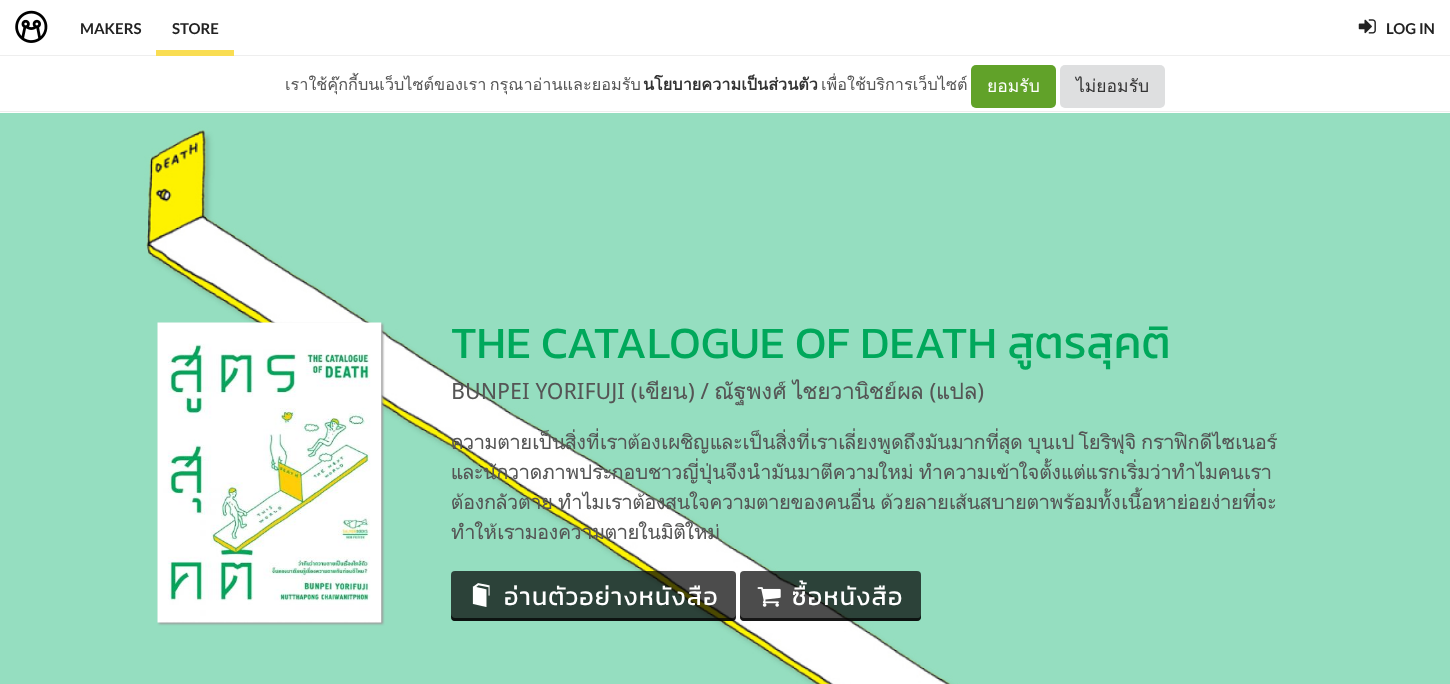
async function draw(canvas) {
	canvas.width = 1450;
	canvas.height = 684;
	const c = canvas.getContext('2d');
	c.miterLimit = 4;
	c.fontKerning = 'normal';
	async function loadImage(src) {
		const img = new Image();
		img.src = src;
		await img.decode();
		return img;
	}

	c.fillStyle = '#fff';
	c.fillRect(0, 0, 1450, 684);
	c.fillStyle = '#eee';
	c.fillRect(0, 55, 1450, 1);
	c.drawImage(await loadImage('img1.png'), 15, 10, 33, 33);
	c.font = 'bold 15px Lato';
	c.fillStyle = '#222';
	c.fillText('MAKERS', 80, 34);
	c.fillStyle = '#f9dd53';
	c.fillRect(156, 50, 78, 6);
	c.fillStyle = '#222';
	c.fillText('STORE', 172, 34);
	c.drawImage(await loadImage('img2.png'), 1358, 19, 18, 15);
	c.fillText('LOG IN', 1386, 34);
	c.fillStyle = '#eee';
	c.fillRect(0, 111, 1450, 1);
	c.wordSpacing = '-2px';
	c.font = '16.25px Loma';
	c.fillStyle = '#555';
	c.fillText('เราใช้คุ๊กกี้บนเว็บไซต์ของเรา กรุณาอ่านและยอมรับ', 285, 90);
	c.wordSpacing = '0px';
	c.font = 'bold 16.25px Loma';
	c.fillStyle = '#333';
	c.fillText('นโยบายความเป็นส่วนตัว', 643, 90);
	c.font = '16.25px Loma';
	c.fillStyle = '#555';
	c.fillText('เพื่อใช้บริการเว็บไซต์', 821, 90);
	c.fillStyle = '#61a229';
	c.beginPath();
	c.roundRect(971, 65, 85, 43, 5);
	c.fill();
	c.font = '17.5px Loma';
	c.fillStyle = '#fff';
	c.fillText('ยอมรับ', 987, 92);
	c.fillStyle = '#dedfe0';
	c.beginPath();
	c.roundRect(1060, 65, 105, 43, 5);
	c.fill();
	c.fillStyle = '#333';
	c.fillText('ไม่ยอมรับ', 1076, 92);
	c.drawImage(await loadImage('img3.png'), 0, 113, 1450, 571);
	c.fillStyle = '#999';
	c.filter = 'blur(1px)';
	c.beginPath();
	c.rect(159, 324, 224, 300);
	c.fill();
	c.filter = 'none';
	c.drawImage(await loadImage('img4.png'), 157, 322, 225, 301);
	c.font = '45px Kanit';
	c.fillStyle = '#00a85b';
	c.fillText('THE CATALOGUE OF DEATH สูตรสุคติ', 451, 358);
	c.font = '22.5px Droid Sans';
	c.fillStyle = '#555';
	c.fillText('BUNPEI YORIFUJI (เขียน) / ณัฐพงศ์ ไชยวานิชย์ผล (แปล)', 451, 399);
	c.font = '20px Droid Sans';
	for (const [text, x, y] of [
		['ความตายเป็นสิ่งที่เราต้องเผชิญและเป็นสิ่งที่เราเลี่ยงพูดถึงมันมากที่สุด บุนเป โยริฟุจิ กราฟิกดีไซเนอร์', 451, 449],
		['และนักวาดภาพประกอบชาวญี่ปุ่นจึงนำมันมาตีความใหม่ ทำความเข้าใจตั้งแต่แรกเริ่มว่าทำไมคนเรา', 451, 479],
		['ต้องกลัวตาย ทำไมเราต้องสนใจความตายของคนอื่น ด้วยลายเส้นสบายตาพร้อมทั้งเนื้อหาย่อยง่ายที่จะ', 451, 509],
		['ทำให้เรามองความตายในมิติใหม่', 451, 539],
	]) {
		c.fillText(text, x, y);
	}
	c.fillStyle = '#000000b3';
	c.beginPath();
	c.roundRect(451, 571, 285, 50, 4);
	c.fill();
	c.beginPath();
	c.moveTo(451, 614);
	c.bezierCurveTo(451, 617, 451, 620, 454, 621);
	c.lineTo(733, 621);
	c.bezierCurveTo(736, 620, 736, 617, 736, 614);
	c.bezierCurveTo(736, 616, 735, 618, 732, 618);
	c.lineTo(455, 618);
	c.bezierCurveTo(453, 618, 451, 616, 451, 614);
	c.closePath();
	c.fill();
	c.drawImage(await loadImage('img5.png'), 472, 583, 18, 24);
	c.letterSpacing = '1.25px';
	c.font = '25px Kanit';
	c.fillStyle = '#fff';
	c.fillText('อ่านตัวอย่างหนังสือ', 504, 605);
	c.fillStyle = '#000000b3';
	c.beginPath();
	c.roundRect(740, 571, 181, 50, 4);
	c.fill();
	c.beginPath();
	c.moveTo(740, 614);
	c.lineTo(740, 617);
	c.bezierCurveTo(740, 619, 742, 621, 744, 621);
	c.lineTo(917, 621);
	c.bezierCurveTo(919, 621, 921, 619, 921, 617);
	c.lineTo(921, 614);
	c.bezierCurveTo(921, 616, 920, 618, 918, 618);
	c.lineTo(744, 618);
	c.bezierCurveTo(742, 618, 740, 616, 740, 614);
	c.closePath();
	c.fill();
	c.drawImage(await loadImage('img6.png'), 757, 587, 24, 20);
	c.fillStyle = '#fff';
	c.fillText('ซื้อหนังสือ', 792, 605);
}

draw(document.querySelector('canvas'));
